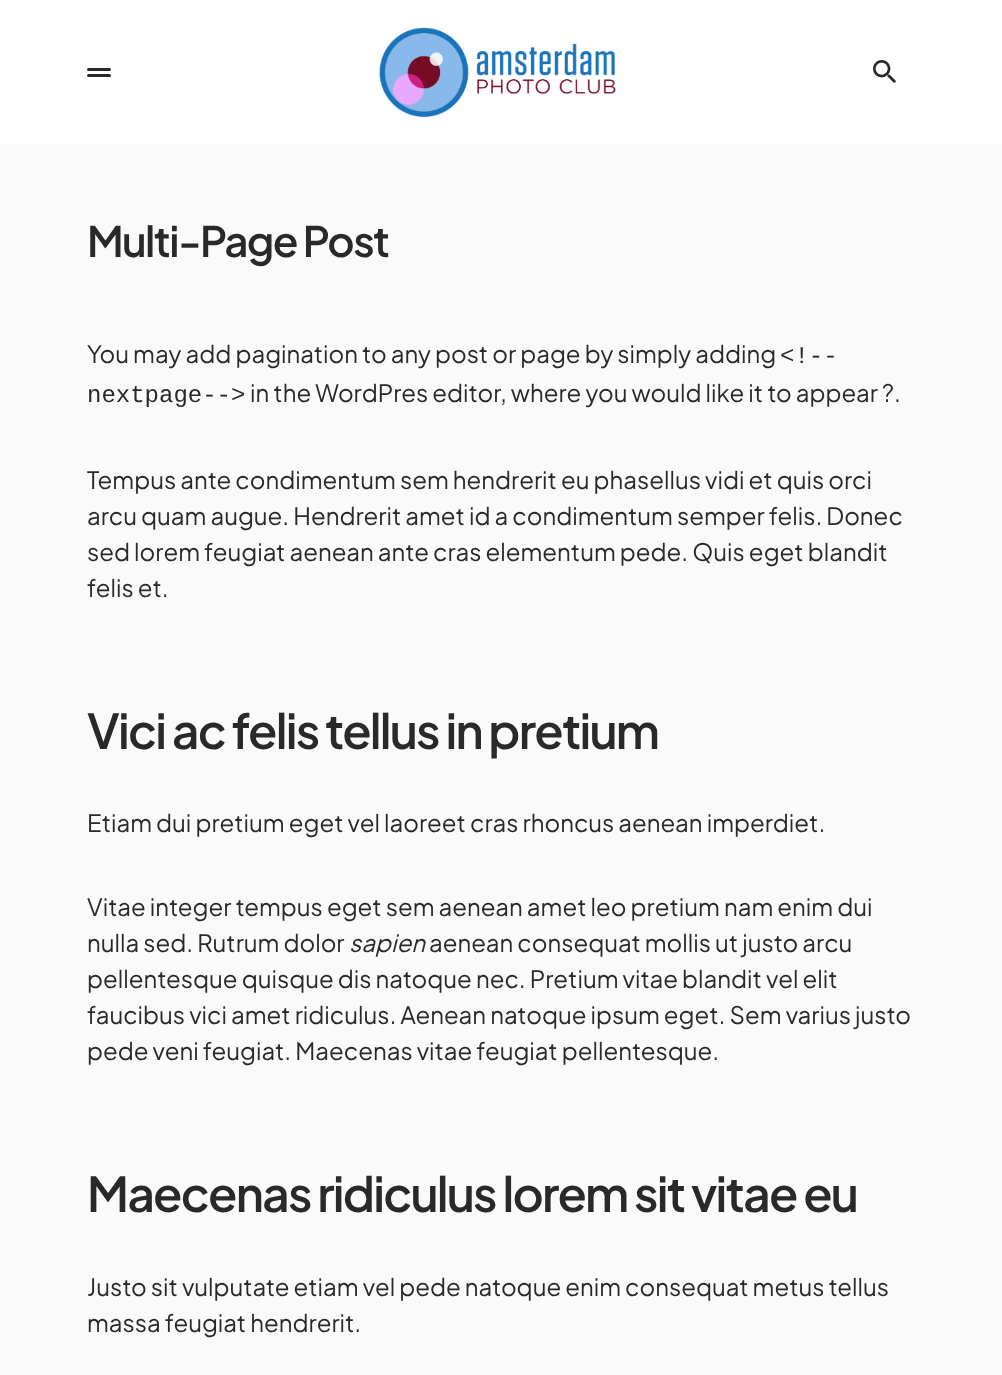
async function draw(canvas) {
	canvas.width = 1002;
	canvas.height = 1375;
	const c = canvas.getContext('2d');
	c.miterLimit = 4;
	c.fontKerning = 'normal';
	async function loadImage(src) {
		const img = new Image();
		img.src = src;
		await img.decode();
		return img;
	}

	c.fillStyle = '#fafafa';
	c.fillRect(0, 0, 1002, 1375);
	c.fillStyle = '#fff';
	c.fillRect(0, 0, 1002, 144);
	c.fillStyle = '#292929';
	c.beginPath();
	c.roundRect(87, 68, 24, 3, 1.5);
	c.fill();
	c.beginPath();
	c.roundRect(87, 74, 24, 3, 1.5);
	c.fill();
	c.drawImage(await loadImage('img1.png'), 379, 27, 237, 91);
	c.drawImage(await loadImage('img2.png'), 873, 60, 23, 23);
	c.letterSpacing = '-1.6px';
	c.font = '600 42px Plus Jakarta Sans';
	c.fillText('Multi-Page Post', 87, 257);
	c.letterSpacing = '0px';
	c.font = '24px Plus Jakarta Sans';
	c.fillText('You may add pagination to any post or page by simply adding', 87, 363);
	c.font = '24px Liberation Mono';
	c.fillText('<\!--', 780, 363);
	c.fillText('nextpage-->', 87, 402);
	c.font = '24px Plus Jakarta Sans';
	for (const [text, x, y] of [
		['in the WordPres editor, where you would like it to appear ?.', 250, 402],
		['Tempus ante condimentum sem hendrerit eu phasellus vidi et quis orci', 87, 489],
		['arcu quam augue. Hendrerit amet id a condimentum semper felis. Donec', 87, 525],
		['sed lorem feugiat aenean ante cras elementum pede. Quis eget blandit', 87, 561],
		['felis et.', 87, 597],
	]) {
		c.fillText(text, x, y);
	}
	c.letterSpacing = '-1.8px';
	c.font = '600 48px Plus Jakarta Sans';
	c.fillText('Vici ac felis tellus in pretium', 87, 749);
	c.letterSpacing = '0px';
	c.font = '24px Plus Jakarta Sans';
	for (const [text, x, y] of [
		['Etiam dui pretium eget vel laoreet cras rhoncus aenean imperdiet.', 87, 832],
		['Vitae integer tempus eget sem aenean amet leo pretium nam enim dui', 87, 916],
		['nulla sed. Rutrum dolor', 87, 952],
	]) {
		c.fillText(text, x, y);
	}
	c.font = 'italic 24px Plus Jakarta Sans';
	c.fillText('sapien', 349, 952);
	c.font = '24px Plus Jakarta Sans';
	for (const [text, x, y] of [
		['aenean consequat mollis ut justo arcu', 429, 952],
		['pellentesque quisque dis natoque nec. Pretium vitae blandit vel elit', 87, 988],
		['faucibus vici amet ridiculus. Aenean natoque ipsum eget. Sem varius justo', 87, 1024],
		['pede veni feugiat. Maecenas vitae feugiat pellentesque.', 87, 1060],
	]) {
		c.fillText(text, x, y);
	}
	c.letterSpacing = '-1.8px';
	c.font = '600 48px Plus Jakarta Sans';
	c.fillText('Maecenas ridiculus lorem sit vitae eu', 87, 1212);
	c.letterSpacing = '0px';
	c.font = '24px Plus Jakarta Sans';
	c.fillText('Justo sit vulputate etiam vel pede natoque enim consequat metus tellus', 87, 1296);
	c.fillText('massa feugiat hendrerit.', 87, 1332);
}

draw(document.querySelector('canvas'));
